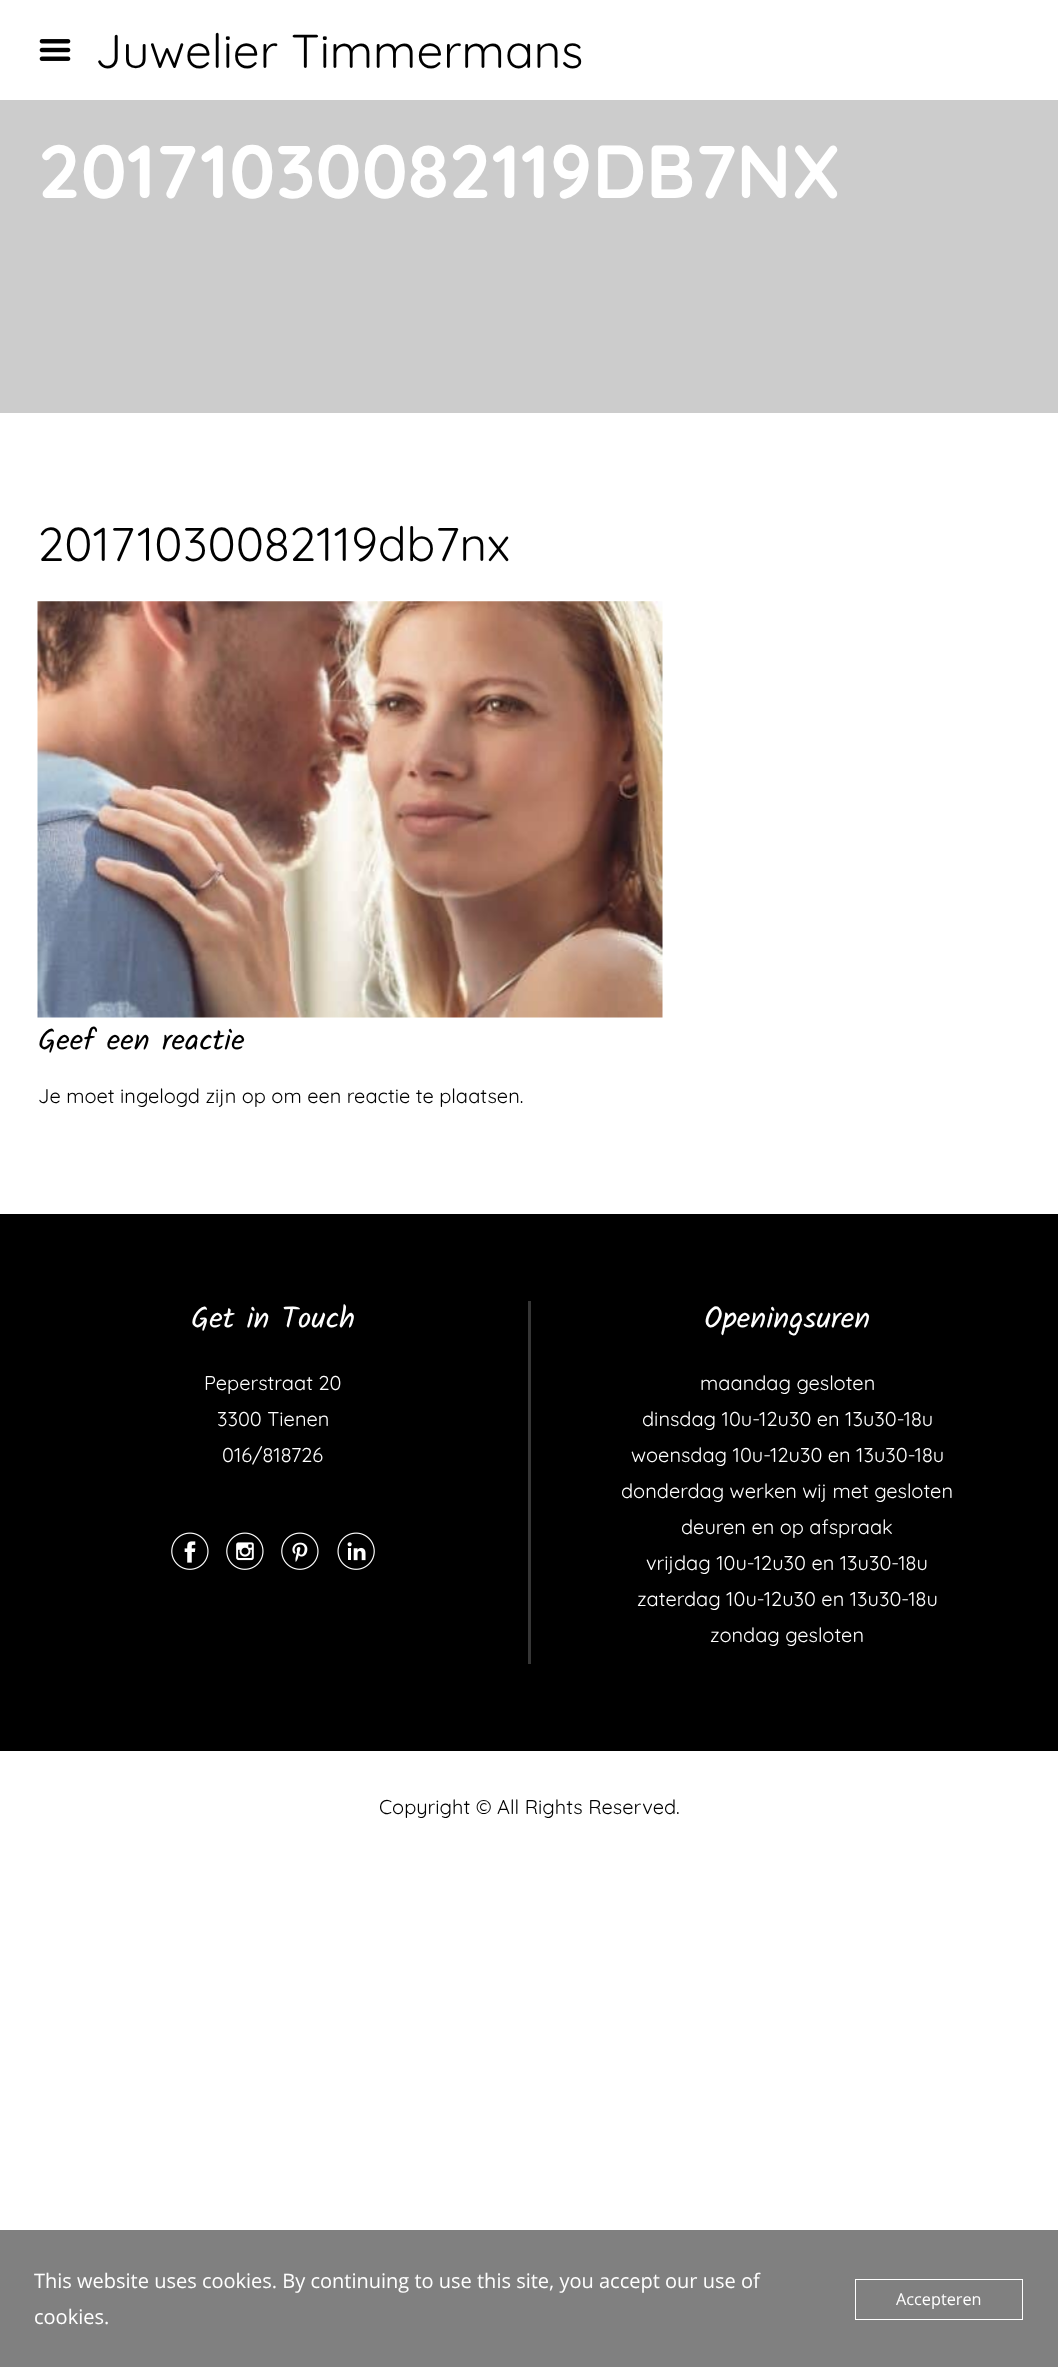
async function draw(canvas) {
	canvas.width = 1058;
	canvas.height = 2367;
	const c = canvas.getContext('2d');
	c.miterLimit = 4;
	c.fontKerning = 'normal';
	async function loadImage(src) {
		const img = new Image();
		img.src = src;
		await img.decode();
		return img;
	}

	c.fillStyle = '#fff';
	c.fillRect(0, 0, 1058, 2367);
	c.drawImage(await loadImage('img1.png'), 39, 39, 32, 22);
	c.font = '47.5px Quicksand';
	c.fillStyle = '#000';
	c.fillText('Juwelier Timmermans', 95, 68);
	c.fillStyle = '#ccc';
	c.fillRect(0, 100, 1058, 313);
	c.font = 'bold 75px Quicksand';
	c.fillStyle = '#fff';
	c.fillText('20171030082119DB7NX', 38, 198);
	c.font = '47.5px Quicksand';
	c.fillStyle = '#000';
	c.fillText('20171030082119db7nx', 38, 561);
	c.drawImage(await loadImage('img2.png'), 37, 601, 626, 417);
	c.font = '30px Kalam';
	c.fillText('Geef een reactie', 38, 1050);
	c.font = '20px Quicksand';
	c.fillText('Je moet ingelogd zijn op om een reactie te plaatsen.', 38, 1103);
	c.fillRect(0, 1214, 1058, 537);
	c.fillStyle = '#363636';
	c.fillRect(528, 1301, 3, 363);
	c.font = '30px Kalam';
	c.fillStyle = '#fff';
	c.fillText('Get in Touch', 191, 1328);
	c.font = '20px Quicksand';
	for (const [text, x, y] of [
		['Peperstraat 20', 204, 1390],
		['3300 Tienen', 217, 1426],
		['016/818726', 222, 1462],
	]) {
		c.fillText(text, x, y);
	}
	c.drawImage(await loadImage('img3.png'), 171, 1532, 38, 38);
	c.drawImage(await loadImage('img4.png'), 226, 1532, 38, 38);
	c.drawImage(await loadImage('img5.png'), 281, 1532, 38, 38);
	c.drawImage(await loadImage('img6.png'), 337, 1532, 38, 38);
	c.font = '30px Kalam';
	c.fillText('Openingsuren', 704, 1328);
	c.font = '20px Quicksand';
	for (const [text, x, y] of [
		['maandag gesloten', 700, 1390],
		['dinsdag 10u-12u30 en 13u30-18u', 642, 1426],
		['woensdag 10u-12u30 en 13u30-18u', 631, 1462],
		['donderdag werken wij met gesloten', 621, 1498],
		['deuren en op afspraak', 681, 1534],
		['vrijdag 10u-12u30 en 13u30-18u', 646, 1570],
		['zaterdag 10u-12u30 en 13u30-18u', 637, 1606],
		['zondag gesloten', 710, 1642],
	]) {
		c.fillText(text, x, y);
	}
	c.fillStyle = '#000';
	c.fillText('Copyright © All Rights Reserved.', 379, 1814);
	c.fillStyle = '#808080';
	c.fillRect(0, 2230, 1058, 137);
	c.font = '20px Open Sans';
	c.fillStyle = '#fff';
	c.fillText('This website uses cookies. By continuing to use this site, you accept our use of', 34, 2288);
	c.fillText('cookies.', 34, 2324);
	c.strokeStyle = '#fff';
	c.strokeRect(855.5, 2279.5, 167, 40);
	c.font = '16.25px Open Sans';
	c.fillText('Accepteren', 896, 2305);
}

draw(document.querySelector('canvas'));
